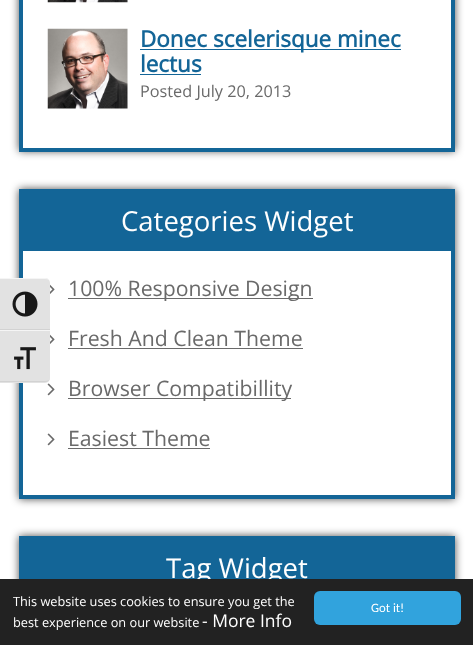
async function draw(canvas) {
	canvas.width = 473;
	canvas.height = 645;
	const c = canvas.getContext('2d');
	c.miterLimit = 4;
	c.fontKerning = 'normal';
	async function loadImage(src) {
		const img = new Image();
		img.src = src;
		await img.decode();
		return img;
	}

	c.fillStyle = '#fff';
	c.fillRect(0, 0, 473, 645);
	c.save();
	c.beginPath();
	c.moveTo(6, 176);
	c.lineTo(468, 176);
	c.lineTo(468, 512);
	c.lineTo(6, 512);
	c.closePath();
	c.moveTo(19, 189);
	c.lineTo(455, 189);
	c.lineTo(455, 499);
	c.lineTo(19, 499);
	c.closePath();
	c.clip('evenodd');
	c.fillStyle = '#000000b3';
	c.filter = 'blur(4px)';
	c.beginPath();
	c.rect(19, 189, 436, 310);
	c.fill();
	c.filter = 'none';
	c.restore();
	for (const [x, y, w, h, color] of [
		[451, 189, 4, 310, '#136597'],
		[19, 495, 436, 4, '#136597'],
		[19, 189, 4, 310, '#136597'],
	]) {
		c.fillStyle = color;
		c.fillRect(x, y, w, h);
	}
	c.fillStyle = '#e2e2e2';
	c.beginPath();
	c.roundRect(0, 278, 50, 52, [0, 5, 0, 0]);
	c.fill();
	c.fillStyle = '#f5f5f5';
	c.beginPath();
	c.moveTo(0, 279);
	c.lineTo(45, 279);
	c.bezierCurveTo(48, 279, 50, 280, 50, 282);
	c.bezierCurveTo(50, 280, 48, 278, 45, 278);
	c.lineTo(0, 278);
	c.closePath();
	c.fill();
	c.fillStyle = '#d2d2d2';
	c.fillRect(0, 329, 50, 1);
	c.drawImage(await loadImage('img1.png'), 12, 291, 26, 26);
	c.fillStyle = '#e2e2e2';
	c.beginPath();
	c.roundRect(0, 330, 50, 53, [0, 0, 5, 0]);
	c.fill();
	c.fillStyle = '#f5f5f5';
	c.fillRect(0, 330, 50, 1);
	c.fillStyle = '#d2d2d2';
	c.beginPath();
	c.moveTo(0, 381);
	c.lineTo(0, 382);
	c.lineTo(45, 382);
	c.bezierCurveTo(48, 382, 50, 380, 50, 378);
	c.bezierCurveTo(50, 380, 48, 381, 45, 381);
	c.closePath();
	c.fill();
	c.drawImage(await loadImage('img2.png'), 14, 347, 22, 23);
	c.save();
	c.beginPath();
	c.moveTo(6, 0);
	c.lineTo(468, 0);
	c.lineTo(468, 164);
	c.lineTo(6, 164);
	c.closePath();
	c.moveTo(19, -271);
	c.lineTo(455, -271);
	c.lineTo(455, 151);
	c.lineTo(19, 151);
	c.closePath();
	c.clip('evenodd');
	c.fillStyle = '#000000b3';
	c.filter = 'blur(4px)';
	c.beginPath();
	c.rect(19, -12, 436, 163);
	c.fill();
	c.filter = 'none';
	c.restore();
	for (const [x, y, w, h, color] of [
		[451, 0, 4, 151, '#136597'],
		[19, 148, 436, 4, '#136597'],
		[19, 0, 4, 151, '#136597'],
	]) {
		c.fillStyle = color;
		c.fillRect(x, y, w, h);
	}
	c.drawImage(await loadImage('img3.png'), 47, 0, 81, 3);
	c.drawImage(await loadImage('img4.png'), 47, 28, 81, 81);
	c.fillRect(140, 49, 261, 1);
	c.font = 'bold 22.5px Open Sans';
	c.fillText('Donec scelerisque minec', 140, 47);
	c.fillText('lectus', 140, 72);
	c.fillRect(140, 74, 61, 1);
	c.font = '16.25px Open Sans';
	c.fillStyle = '#6a6a6a';
	c.fillText('Posted July 20, 2013', 140, 97);
	c.fillStyle = '#136597';
	c.fillRect(23, 189, 428, 62);
	c.font = '27.5px Open Sans';
	c.fillStyle = '#fff';
	c.fillText('Categories Widget', 121, 231);
	c.drawImage(await loadImage('img5.png'), 50, 284, 5, 10);
	c.fillStyle = '#6a6a6a';
	c.fillRect(68, 298, 245, 1);
	c.font = '21.25px Open Sans';
	c.fillText('100% Responsive Design', 68, 296);
	c.drawImage(await loadImage('img5.png'), 50, 334, 5, 10);
	c.fillText('Fresh And Clean Theme', 68, 346);
	c.fillRect(68, 348, 235, 1);
	c.drawImage(await loadImage('img6.png'), 47, 383, 8, 13);
	c.fillRect(68, 398, 223, 1);
	c.fillText('Browser Compatibillity', 68, 396);
	c.drawImage(await loadImage('img6.png'), 47, 433, 8, 13);
	c.fillText('Easiest Theme', 68, 446);
	c.fillRect(68, 448, 142, 1);
	c.fillStyle = '#000000b3';
	c.filter = 'blur(4px)';
	c.beginPath();
	c.rect(19, 536, 436, 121);
	c.fill();
	c.filter = 'none';
	c.fillStyle = '#136597';
	c.fillRect(451, 536, 4, 43);
	c.fillRect(19, 536, 432, 43);
	c.font = '27.5px Open Sans';
	c.fillStyle = '#fff';
	c.fillText('Tag Widget', 166, 578);
	c.fillStyle = '#222';
	c.fillRect(0, 579, 473, 66);
	c.font = '12.75px Open Sans';
	c.fillStyle = '#fff';
	c.fillText('This website uses cookies to ensure you get the', 13, 606);
	c.fillText('best experience on our website', 13, 627);
	c.font = '17.5px Open Sans';
	c.fillText('- More Info', 202, 627);
	c.fillStyle = '#31a3dd';
	c.beginPath();
	c.roundRect(314, 591, 147, 34, 6);
	c.fill();
	c.font = '12.75px Carlito';
	c.fillStyle = '#fff';
	c.fillText('Got it!', 371, 612);
}

draw(document.querySelector('canvas'));
